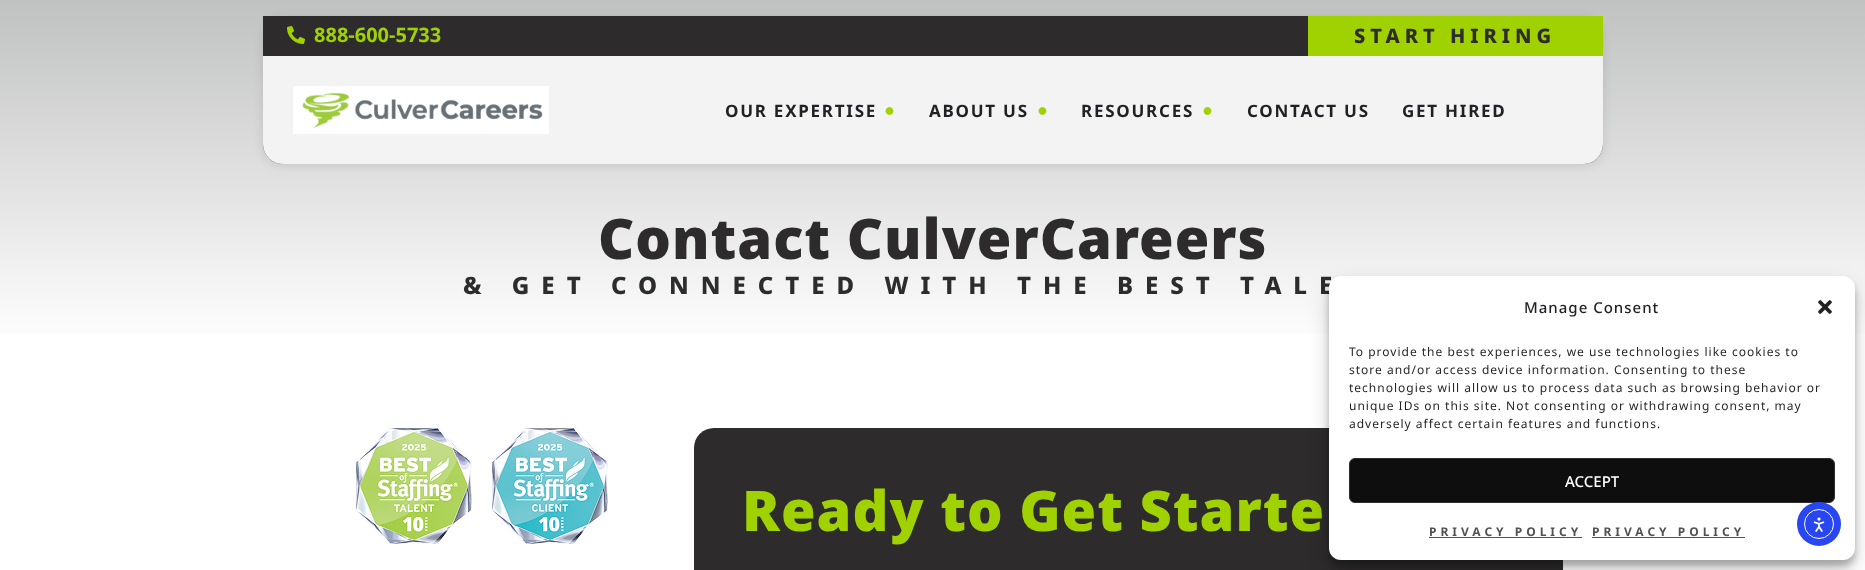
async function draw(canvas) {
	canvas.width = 1865;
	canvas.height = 570;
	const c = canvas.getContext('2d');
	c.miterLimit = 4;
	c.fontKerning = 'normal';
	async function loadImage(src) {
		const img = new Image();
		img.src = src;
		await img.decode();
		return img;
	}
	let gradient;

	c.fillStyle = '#fff';
	c.fillRect(0, 0, 1865, 570);
	gradient = c.createLinearGradient(933, -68, 933, 348);
	gradient.addColorStop(0, '#b4b5b5');
	gradient.addColorStop(1, '#fff');
	c.fillStyle = gradient;
	c.fillRect(0, 0, 1865, 334);
	c.fillStyle = '#0000001a';
	c.filter = 'blur(5px)';
	c.beginPath();
	c.roundRect(263, 18, 1340, 148, 20);
	c.fill();
	c.filter = 'none';
	c.fillStyle = '#2d2b2b';
	c.beginPath();
	c.roundRect(263, 16, 1340, 148, [0, 0, 20, 20]);
	c.fill();
	c.drawImage(await loadImage('img1.png'), 287, 26, 18, 18);
	c.font = 'bold 20px Noto Sans';
	c.fillStyle = '#a0d100';
	c.fillText('888-600-5733', 314, 42);
	c.fillRect(1308, 16, 295, 40);
	c.letterSpacing = '5px';
	c.font = '800 20px Noto Sans';
	c.fillStyle = '#2d2b2b';
	c.fillText('START HIRING', 1354, 43);
	c.fillStyle = '#f3f3f3';
	c.beginPath();
	c.roundRect(263, 56, 1340, 108, [0, 0, 20, 20]);
	c.fill();
	c.drawImage(await loadImage('img2.png'), 293, 86, 256, 48);
	c.letterSpacing = '1.75px';
	c.font = 'bold 17px Noto Sans';
	c.fillStyle = '#1f2124';
	c.fillText('OUR EXPERTISE', 725, 117);
	c.drawImage(await loadImage('img3.png'), 885, 107, 9, 8);
	c.fillText('ABOUT US', 929, 117);
	c.drawImage(await loadImage('img3.png'), 1038, 107, 9, 8);
	c.fillText('RESOURCES', 1081, 117);
	c.drawImage(await loadImage('img3.png'), 1203, 107, 9, 8);
	c.fillText('CONTACT US', 1247, 117);
	c.fillText('GET HIRED', 1402, 117);
	c.letterSpacing = '1px';
	c.font = '900 56px Noto Sans';
	c.fillStyle = '#2d2b2b';
	c.fillText('Contact CulverCareers', 598, 259);
	c.letterSpacing = '12px';
	c.font = '800 24px Noto Sans';
	c.fillText('& GET CONNECTED WITH THE BEST TALE', 463, 294);
	c.drawImage(await loadImage('img4.png'), 356, 428, 116, 116);
	c.drawImage(await loadImage('img5.png'), 492, 428, 116, 116);
	c.beginPath();
	c.roundRect(694, 428, 869, 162, 20);
	c.fill();
	c.letterSpacing = '1px';
	c.font = '900 56px Noto Sans';
	c.fillStyle = '#a0d100';
	c.fillText('Ready to Get Starte', 742, 531);
	c.fillStyle = '#0000003b';
	c.filter = 'blur(3px)';
	c.beginPath();
	c.roundRect(1329, 282, 526, 284, 12);
	c.fill();
	c.filter = 'none';
	c.fillStyle = '#00000030';
	c.filter = 'blur(10px)';
	c.beginPath();
	c.roundRect(1329, 286, 526, 284, 12);
	c.fill();
	c.filter = 'none';
	c.fillStyle = '#fff';
	c.beginPath();
	c.roundRect(1329, 276, 526, 284, 12);
	c.fill();
	c.font = '500 15px Noto Sans';
	c.fillStyle = '#1f2124';
	c.fillText('Manage Consent', 1524, 313);
	c.drawImage(await loadImage('img6.png'), 1818, 300, 14, 14);
	c.font = '12px Noto Sans';
	for (const [text, x, y] of [
		['To provide the best experiences, we use technologies like cookies to', 1349, 356],
		['store and/or access device information. Consenting to these', 1349, 374],
		['technologies will allow us to process data such as browsing behavior or', 1349, 392],
		['unique IDs on this site. Not consenting or withdrawing consent, may', 1349, 410],
		['adversely affect certain features and functions.', 1349, 428],
	]) {
		c.fillText(text, x, y);
	}
	c.fillStyle = '#0e0e0e';
	c.beginPath();
	c.roundRect(1349.5, 458.5, 485, 44, 5.5);
	c.fill();
	c.strokeStyle = '#2c2e2f';
	c.stroke();
	c.letterSpacing = '0px';
	c.font = '500 15px Noto Sans';
	c.fillStyle = '#fff';
	c.fillText('ACCEPT', 1565, 487);
	c.letterSpacing = '4px';
	c.font = 'bold 12px Noto Sans';
	c.fillStyle = '#525252';
	c.fillText('PRIVACY POLICY', 1429, 536);
	c.fillRect(1429, 537, 153, 1);
	c.fillText('PRIVACY POLICY', 1592, 536);
	c.fillRect(1592, 537, 153, 1);
	c.fillStyle = '#2847f3';
	c.beginPath();
	c.arc(1819, 524, 22, 0, 2 * Math.PI);
	c.fill();
	c.beginPath();
	c.arc(1819, 524, 14.5, 0, 2 * Math.PI);
	c.strokeStyle = '#fff';
	c.stroke();
	c.drawImage(await loadImage('img7.png'), 1813, 517, 12, 15);
}

draw(document.querySelector('canvas'));
